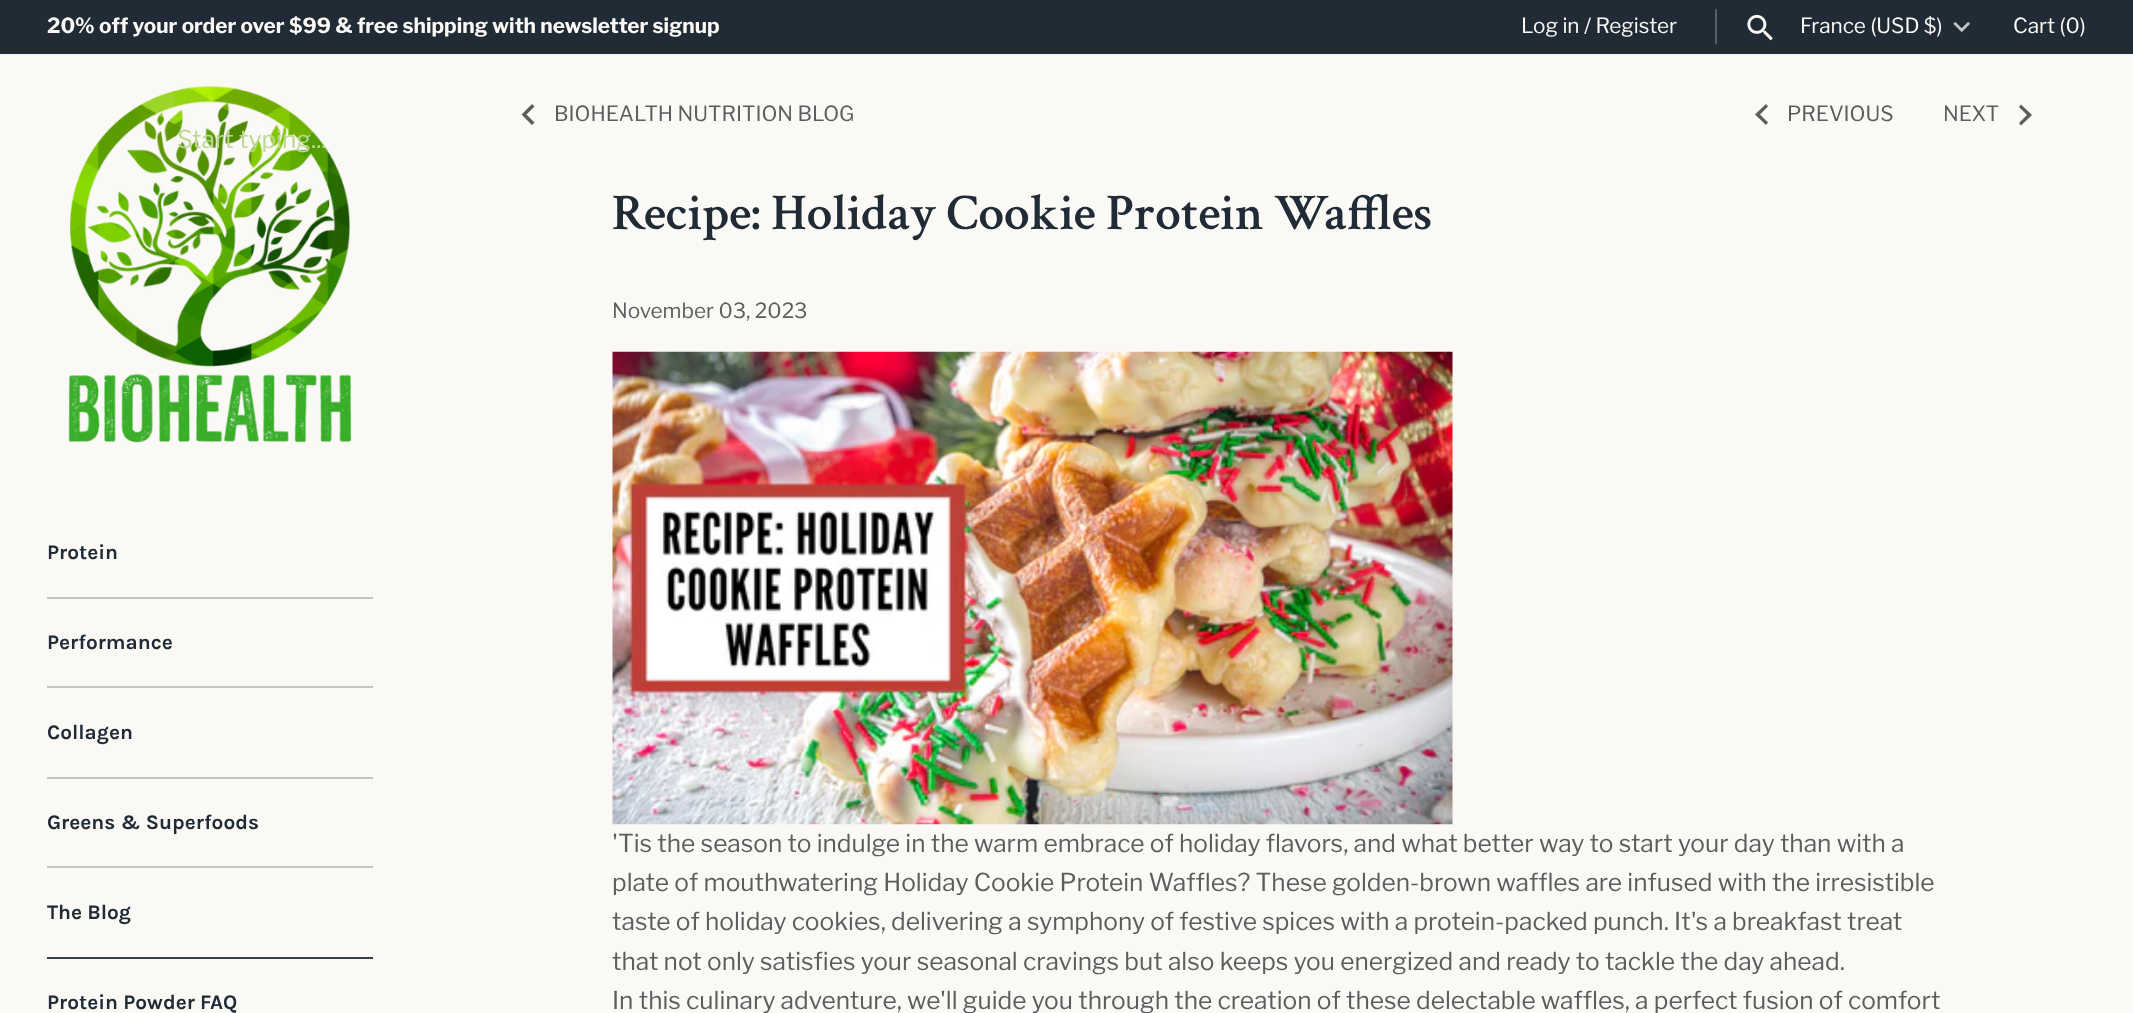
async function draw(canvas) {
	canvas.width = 2133;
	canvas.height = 1013;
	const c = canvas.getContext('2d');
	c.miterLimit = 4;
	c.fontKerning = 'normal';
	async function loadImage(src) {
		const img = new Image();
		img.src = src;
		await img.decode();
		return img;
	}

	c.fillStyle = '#faf9f5';
	c.fillRect(0, 0, 2133, 1013);
	c.fillStyle = '#212b36';
	c.fillRect(0, 0, 2133, 54);
	c.font = 'bold 20.8px Libre Franklin';
	c.fillStyle = '#faf9f5';
	c.fillText('20% off your order over $99 & free shipping with newsletter signup', 47, 33);
	c.font = '20.8px Libre Franklin';
	c.fillText('Log in / Register', 1521, 33);
	c.fillStyle = '#575f66';
	c.fillRect(1715, 9, 2, 35);
	c.drawImage(await loadImage('img1.png'), 1747, 14, 26, 27);
	c.fillStyle = '#faf9f5';
	c.fillText('France (USD $)', 1800, 33);
	c.drawImage(await loadImage('img2.png'), 1953, 21, 17, 12);
	c.fillText('Cart (0)', 2013, 33);
	c.drawImage(await loadImage('img3.png'), 68, 85, 284, 358);
	c.font = '24.5px Libre Franklin';
	c.fillStyle = '#bdd793';
	c.fillText('Start typing...', 177, 148);
	c.fillStyle = '#c4c6c5';
	c.fillRect(47, 597, 326, 2);
	c.font = 'bold 20.8px Karla';
	c.fillStyle = '#212b36';
	c.fillText('Protein', 47, 559);
	c.fillStyle = '#c4c6c5';
	c.fillRect(47, 686, 326, 2);
	c.fillStyle = '#212b36';
	c.fillText('Performance', 47, 649);
	c.fillStyle = '#c4c6c5';
	c.fillRect(47, 777, 326, 2);
	c.fillStyle = '#212b36';
	c.fillText('Collagen', 47, 739);
	c.fillStyle = '#c4c6c5';
	c.fillRect(47, 866, 326, 2);
	c.fillStyle = '#212b36';
	c.fillText('Greens & Superfoods', 47, 829);
	c.fillStyle = '#374049';
	c.fillRect(47, 957, 326, 2);
	c.fillStyle = '#212b36';
	c.fillText('The Blog', 47, 919);
	c.fillText('Protein Powder FAQ', 47, 1009);
	c.font = '20.8px Libre Franklin';
	c.fillStyle = '#5d5d60';
	c.fillText('BIOHEALTH NUTRITION BLOG', 554, 121);
	c.beginPath();
	c.moveTo(534.5, 122.5);
	c.lineTo(526.5, 114.5);
	c.lineTo(534.5, 106.5);
	c.lineTo(532, 104);
	c.lineTo(521.5, 114.5);
	c.lineTo(532, 125);
	c.closePath();
	c.fill();
	c.fillText('PREVIOUS', 1787, 121);
	c.beginPath();
	c.moveTo(1768, 122.5);
	c.lineTo(1760, 114.5);
	c.lineTo(1768, 106.5);
	c.lineTo(1766, 104);
	c.lineTo(1755, 114.5);
	c.lineTo(1766, 125);
	c.closePath();
	c.fill();
	c.fillText('NEXT', 1943, 121);
	c.beginPath();
	c.moveTo(2019, 123);
	c.lineTo(2027, 115);
	c.lineTo(2019, 107);
	c.lineTo(2021, 104.5);
	c.lineTo(2032, 115);
	c.lineTo(2021, 125.5);
	c.closePath();
	c.fill();
	c.font = '600 51.5px Crimson Text';
	c.fillStyle = '#212b36';
	c.fillText('Recipe: Holiday Cookie Protein Waffles', 612, 229);
	c.font = '20.8px Libre Franklin';
	c.fillStyle = '#5d5d60';
	c.fillText('November 03, 2023', 612, 318);
	c.drawImage(await loadImage('img4.png'), 612, 351, 841, 474);
	c.font = '24.5px Libre Franklin';
	for (const [text, x, y] of [
		['\'Tis the season to indulge in the warm embrace of holiday flavors, and what better way to start your day than with a', 612, 852],
		['plate of mouthwatering Holiday Cookie Protein Waffles? These golden-brown waffles are infused with the irresistible', 612, 891],
		['taste of holiday cookies, delivering a symphony of festive spices with a protein-packed punch. It\'s a breakfast treat', 612, 930],
		['that not only satisfies your seasonal cravings but also keeps you energized and ready to tackle the day ahead.', 612, 970],
		['In this culinary adventure, we\'ll guide you through the creation of these delectable waffles, a perfect fusion of comfort', 612, 1009],
	]) {
		c.fillText(text, x, y);
	}
}

draw(document.querySelector('canvas'));
